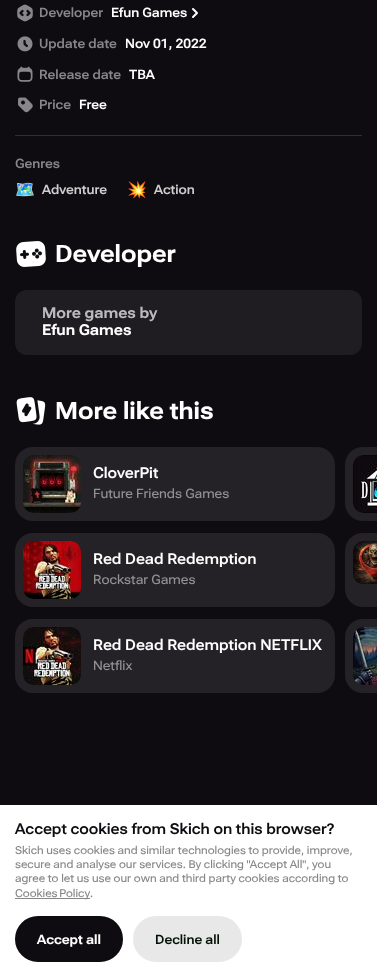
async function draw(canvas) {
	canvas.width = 377;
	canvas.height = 977;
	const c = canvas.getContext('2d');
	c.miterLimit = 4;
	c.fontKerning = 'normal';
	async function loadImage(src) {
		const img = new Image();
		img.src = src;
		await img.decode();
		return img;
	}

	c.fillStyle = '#0e0c10';
	c.fillRect(0, 0, 377, 977);
	c.drawImage(await loadImage('img1.png'), 17, 4, 16, 18);
	c.font = '500 13px Roboto Flex';
	c.fillStyle = '#878688';
	c.fillText('Developer', 39, 17);
	c.fillStyle = '#fff';
	c.fillText('Efun Games', 111, 17);
	c.beginPath();
	c.moveTo(193, 9);
	c.lineTo(197, 13);
	c.lineTo(193, 17);
	c.strokeStyle = '#fff';
	c.lineWidth = 2;
	c.lineCap = 'round';
	c.lineJoin = 'round';
	c.stroke();
	c.drawImage(await loadImage('img2.png'), 17, 36, 16, 16);
	c.fillStyle = '#878688';
	c.fillText('Update date', 39, 48);
	c.fillStyle = '#fff';
	c.fillText('Nov 01, 2022', 125, 48);
	c.drawImage(await loadImage('img3.png'), 17, 66, 16, 16);
	c.fillStyle = '#878688';
	c.fillText('Release date', 39, 79);
	c.fillStyle = '#fff';
	c.fillText('TBA', 129, 79);
	c.drawImage(await loadImage('img4.png'), 18, 97, 15, 16);
	c.fillStyle = '#878688';
	c.fillText('Price', 39, 109);
	c.fillStyle = '#fff';
	c.fillText('Free', 79, 109);
	c.fillStyle = '#312e34';
	c.beginPath();
	c.roundRect(15, 135, 347, 1, 0.5);
	c.fill();
	c.fillStyle = '#878688';
	c.fillText('Genres', 15, 168);
	c.font = 'bold 16px Noto Color Emoji';
	c.fillStyle = '#fff';
	c.fillText('🗺️', 15, 195);
	c.font = '500 13px Roboto Flex';
	c.fillStyle = '#cfcecf';
	c.fillText('Adventure', 42, 194);
	c.font = 'bold 16px Noto Color Emoji';
	c.fillStyle = '#fff';
	c.fillText('💥', 127, 195);
	c.font = '500 13px Roboto Flex';
	c.fillStyle = '#cfcecf';
	c.fillText('Action', 154, 194);
	c.drawImage(await loadImage('img5.png'), 16, 241, 30, 26);
	c.font = '600 24px Roboto Flex';
	c.fillStyle = '#fff';
	c.fillText('Developer', 55, 262);
	c.fillStyle = '#1f1d21';
	c.beginPath();
	c.roundRect(15, 290, 347, 65, 12);
	c.fill();
	c.font = '600 15px Roboto Flex';
	c.fillStyle = '#bcbbbc';
	c.fillText('More games by', 42, 318);
	c.fillStyle = '#fff';
	c.fillText('Efun Games', 42, 335);
	c.drawImage(await loadImage('img6.png'), 16, 397, 30, 28);
	c.font = '600 24px Roboto Flex';
	c.fillText('More like this', 55, 419);
	c.fillStyle = '#242226';
	c.beginPath();
	c.roundRect(15, 447, 320, 74, 18);
	c.fill();
	c.drawImage(await loadImage('img7.png'), 23, 455, 58, 58);
	c.font = '500 15px Roboto Flex';
	c.fillStyle = '#fff';
	c.fillText('CloverPit', 93, 478);
	c.font = '300 13px Roboto Flex';
	c.fillStyle = '#929193';
	c.fillText('Future Friends Games', 93, 498);
	c.fillStyle = '#242226';
	c.beginPath();
	c.roundRect(15, 533, 320, 74, 18);
	c.fill();
	c.drawImage(await loadImage('img8.png'), 23, 541, 58, 58);
	c.font = '500 15px Roboto Flex';
	c.fillStyle = '#fff';
	c.fillText('Red Dead Redemption', 93, 564);
	c.font = '300 13px Roboto Flex';
	c.fillStyle = '#929193';
	c.fillText('Rockstar Games', 93, 584);
	c.fillStyle = '#242226';
	c.beginPath();
	c.roundRect(15, 619, 320, 74, 18);
	c.fill();
	c.drawImage(await loadImage('img9.png'), 23, 627, 58, 58);
	c.font = '500 15px Roboto Flex';
	c.fillStyle = '#fff';
	c.fillText('Red Dead Redemption NETFLIX', 93, 650);
	c.font = '300 13px Roboto Flex';
	c.fillStyle = '#929193';
	c.fillText('Netflix', 93, 670);
	c.fillStyle = '#242226';
	c.beginPath();
	c.roundRect(345, 447, 32, 74, [18, 0, 0, 18]);
	c.fill();
	c.drawImage(await loadImage('img10.png'), 353, 455, 24, 58);
	c.beginPath();
	c.roundRect(345, 533, 32, 74, [18, 0, 0, 18]);
	c.fill();
	c.drawImage(await loadImage('img11.png'), 353, 541, 24, 43);
	c.beginPath();
	c.roundRect(345, 619, 32, 74, [18, 0, 0, 18]);
	c.fill();
	c.drawImage(await loadImage('img12.png'), 353, 627, 24, 58);
	c.fillStyle = '#fff';
	c.fillRect(0, 805, 377, 172);
	c.font = '500 15px Roboto Flex';
	c.fillStyle = '#0e0c10';
	c.fillText('Accept cookies from Skich on this browser?', 15, 834);
	c.font = '300 11px Roboto Flex';
	c.fillStyle = '#878688';
	for (const [text, x, y] of [
		['Skich uses cookies and similar technologies to provide, improve,', 15, 854],
		['secure and analyse our services. By clicking "Accept All", you', 15, 868],
		['agree to let us use our own and third party cookies according to', 15, 882],
	]) {
		c.fillText(text, x, y);
	}
	c.fillRect(15, 898, 75, 1);
	c.wordSpacing = '-1px';
	c.fillText('Cookies Policy', 15, 897);
	c.wordSpacing = '0px';
	c.fillText('.', 90, 897);
	c.fillStyle = '#0e0c10';
	c.beginPath();
	c.roundRect(16, 917, 106, 44, 22);
	c.fill();
	c.strokeStyle = '#0e0c10';
	c.lineJoin = 'miter';
	c.stroke();
	c.font = '600 13px Roboto Flex';
	c.fillStyle = '#fff';
	c.fillText('Accept all', 37, 944);
	c.fillStyle = '#e8e8e8';
	c.beginPath();
	c.roundRect(134, 917, 107, 44, 22);
	c.fill();
	c.strokeStyle = '#e8e8e8';
	c.stroke();
	c.font = '500 13px Roboto Flex';
	c.fillStyle = '#041107';
	c.fillText('Decline all', 155, 944);
}

draw(document.querySelector('canvas'));
